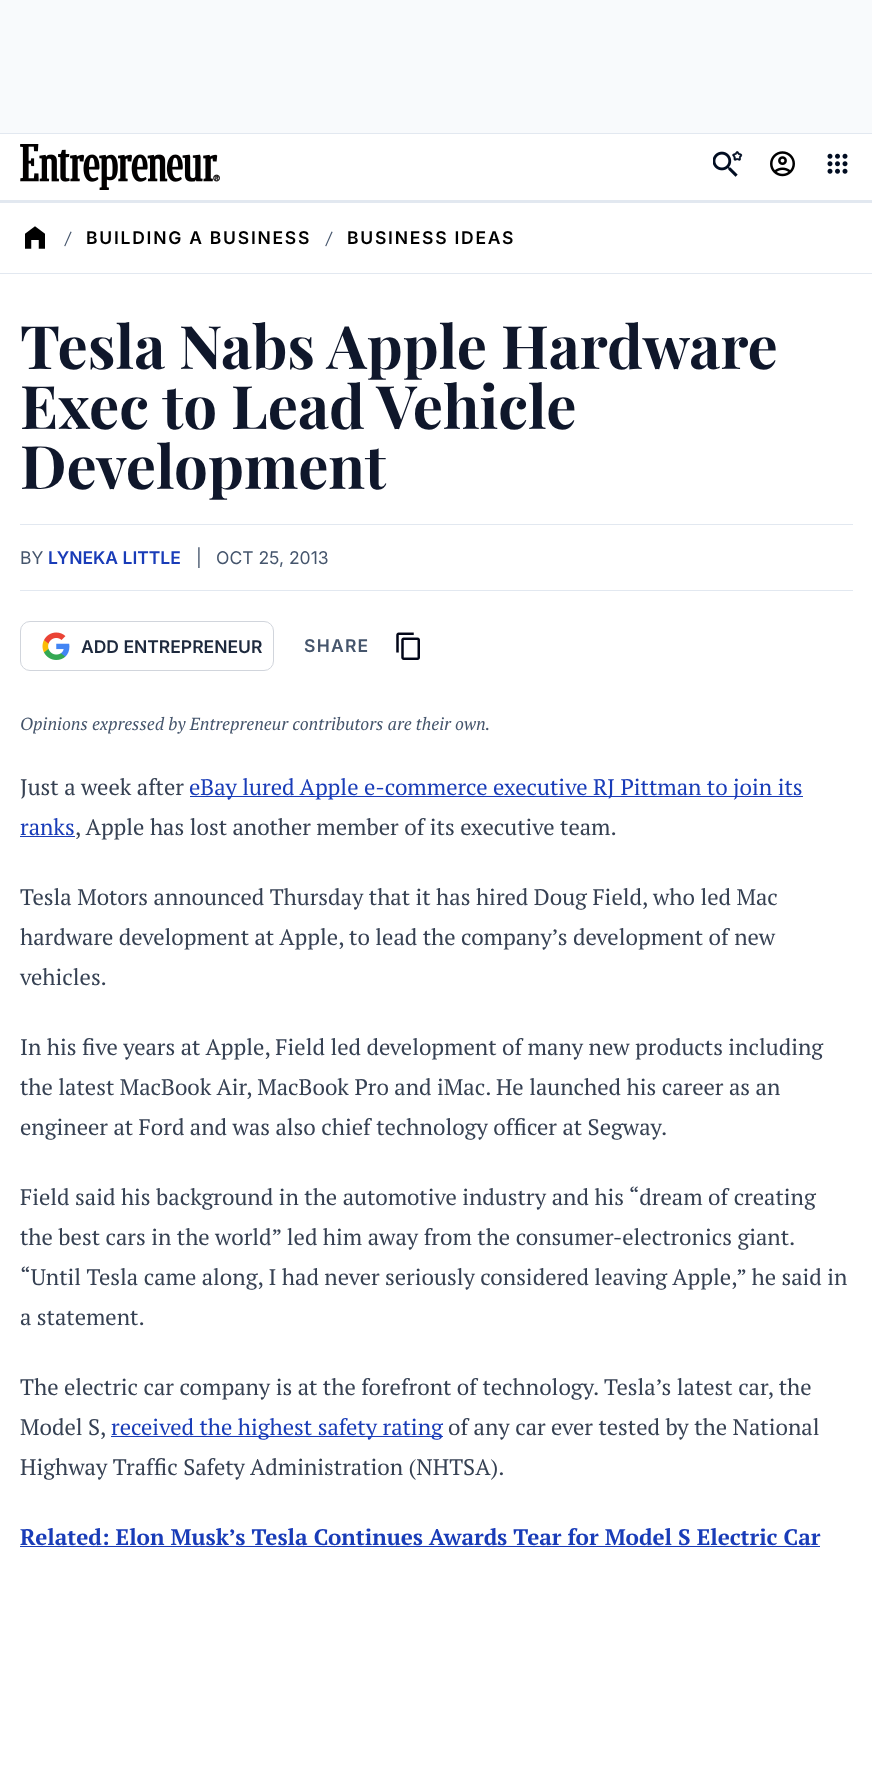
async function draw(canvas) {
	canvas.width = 872;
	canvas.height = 1777;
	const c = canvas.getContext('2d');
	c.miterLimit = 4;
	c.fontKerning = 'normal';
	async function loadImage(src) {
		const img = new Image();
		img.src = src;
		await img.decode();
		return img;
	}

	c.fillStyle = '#fff';
	c.fillRect(0, 0, 872, 1777);
	for (const [x, y, w, h, color] of [
		[0, 0, 872, 133, '#f8fafc'],
		[0, 133, 872, 1, '#e2e8f0'],
		[0, 200, 872, 3, '#e2e8f0'],
	]) {
		c.fillStyle = color;
		c.fillRect(x, y, w, h);
	}
	c.drawImage(await loadImage('img1.png'), 20, 144, 200, 46);
	c.drawImage(await loadImage('img2.png'), 713, 151, 30, 26);
	c.drawImage(await loadImage('img3.png'), 770, 151, 25, 26);
	c.drawImage(await loadImage('img4.png'), 827, 153, 21, 21);
	c.fillRect(0, 273, 872, 1);
	c.drawImage(await loadImage('img5.png'), 25, 226, 20, 23);
	c.font = 'bold 17.5px PT Serif';
	c.fillStyle = '#45556c';
	c.fillText('/', 65, 244);
	c.letterSpacing = '1.75px';
	c.font = '600 17.5px Inter';
	c.fillStyle = '#000';
	c.fillText('BUILDING A BUSINESS', 86, 244);
	c.letterSpacing = '0px';
	c.font = 'bold 17.5px PT Serif';
	c.fillStyle = '#45556c';
	c.fillText('/', 326, 244);
	c.letterSpacing = '1.75px';
	c.font = '600 17.5px Inter';
	c.fillStyle = '#000';
	c.fillText('BUSINESS IDEAS', 347, 244);
	c.letterSpacing = '0px';
	c.font = 'bold 60px Playfair Display';
	c.fillStyle = '#0f172b';
	for (const [text, x, y] of [
		['Tesla Nabs Apple Hardware', 20, 369],
		['Exec to Lead Vehicle', 20, 429],
		['Development', 20, 489],
	]) {
		c.fillText(text, x, y);
	}
	c.fillStyle = '#e2e8f0';
	c.fillRect(20, 524, 833, 1);
	c.fillRect(20, 590, 833, 1);
	c.font = '17.5px Inter';
	c.fillStyle = '#45556c';
	c.fillText('BY', 20, 564);
	c.font = '600 17.5px Inter';
	c.fillStyle = '#193cb8';
	c.fillText('LYNEKA LITTLE', 48, 564);
	c.font = '17.5px Inter';
	c.fillStyle = '#45556c';
	c.fillText('|', 196, 564);
	c.fillText('OCT 25, 2013', 216, 564);
	c.beginPath();
	c.roundRect(20.5, 621.5, 253, 49, 9.5);
	c.strokeStyle = '#d1d5dc';
	c.stroke();
	c.drawImage(await loadImage('img6.png'), 42, 632, 28, 28);
	c.font = '600 17.5px Inter';
	c.fillStyle = '#1d293d';
	c.fillText('ADD ENTREPRENEUR', 81, 653);
	c.letterSpacing = '1.25px';
	c.fillStyle = '#45556c';
	c.fillText('SHARE', 304, 652);
	c.drawImage(await loadImage('img7.png'), 396, 632, 24, 28);
	c.letterSpacing = '0px';
	c.font = 'italic 17.5px PT Serif';
	c.fillText('Opinions expressed by Entrepreneur contributors are their own.', 20, 730);
	c.font = '22.5px PT Serif';
	c.fillStyle = '#364153';
	c.fillText('Just a week after', 20, 795);
	c.fillStyle = '#193cb8';
	c.fillRect(190, 796, 613, 1);
	c.fillText('eBay lured Apple e-commerce executive RJ Pittman to join its', 189, 795);
	c.fillText('ranks', 20, 835);
	c.fillRect(20, 836, 55, 1);
	c.fillStyle = '#364153';
	for (const [text, x, y] of [
		[', Apple has lost another member of its executive team.', 75, 835],
		['Tesla Motors announced Thursday that it has hired Doug Field, who led Mac', 20, 905],
		['hardware development at Apple, to lead the company’s development of new', 20, 945],
		['vehicles.', 20, 985],
		['In his five years at Apple, Field led development of many new products including', 20, 1055],
		['the latest MacBook Air, MacBook Pro and iMac. He launched his career as an', 20, 1095],
		['engineer at Ford and was also chief technology officer at Segway.', 20, 1135],
		['Field said his background in the automotive industry and his “dream of creating', 20, 1205],
		['the best cars in the world” led him away from the consumer-electronics giant.', 20, 1245],
		['“Until Tesla came along, I had never seriously considered leaving Apple,” he said in', 20, 1285],
		['a statement.', 20, 1325],
		['The electric car company is at the forefront of technology. Tesla’s latest car, the', 20, 1395],
		['Model S,', 20, 1435],
	]) {
		c.fillText(text, x, y);
	}
	c.fillStyle = '#193cb8';
	c.fillRect(111, 1436, 332, 1);
	c.fillText('received the highest safety rating', 111, 1435);
	c.fillStyle = '#364153';
	c.fillText('of any car ever tested by the National', 448, 1435);
	c.fillText('Highway Traffic Safety Administration (NHTSA).', 20, 1475);
	c.font = 'bold 22.5px PT Serif';
	c.fillStyle = '#193cb8';
	c.fillText('Related: Elon Musk’s Tesla Continues Awards Tear for Model S Electric Car', 20, 1545);
	c.fillRect(20, 1546, 800, 1);
}

draw(document.querySelector('canvas'));
